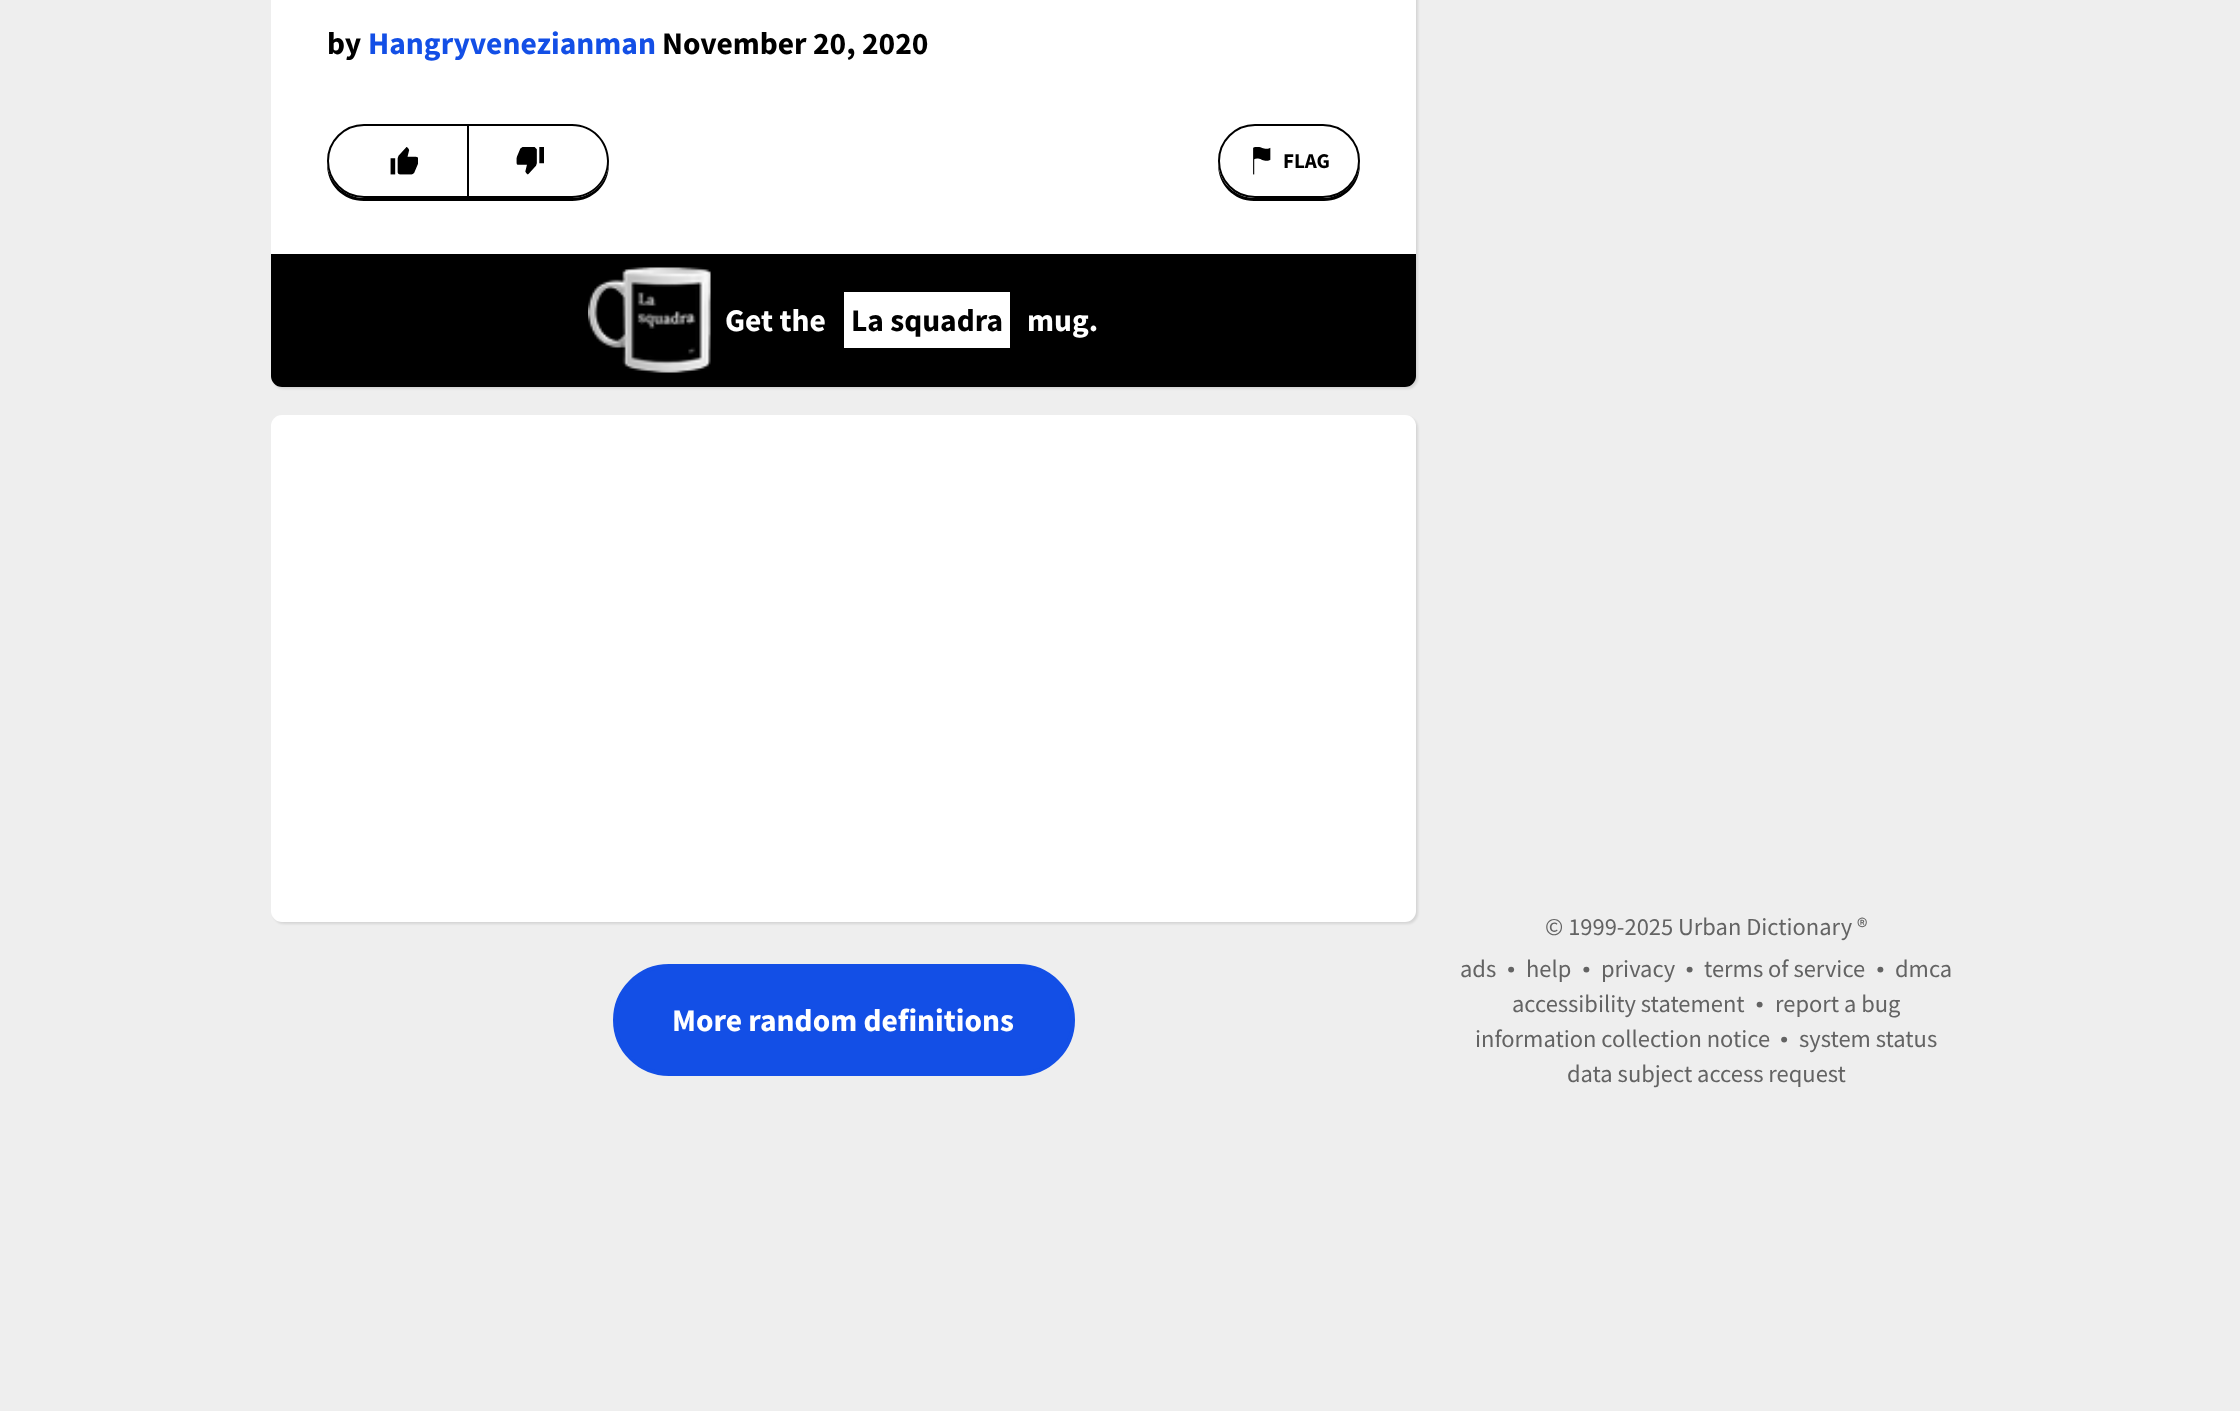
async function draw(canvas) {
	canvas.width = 2240;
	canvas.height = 1411;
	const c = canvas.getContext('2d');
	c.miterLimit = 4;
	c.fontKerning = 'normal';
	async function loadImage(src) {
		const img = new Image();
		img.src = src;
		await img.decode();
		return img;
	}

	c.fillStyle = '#eee';
	c.fillRect(0, 0, 2240, 1411);
	c.fillStyle = '#0000001a';
	c.filter = 'blur(1px)';
	c.beginPath();
	c.roundRect(273, -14, 1145, 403, 11);
	c.fill();
	c.filter = 'none';
	c.fillStyle = '#fff';
	c.beginPath();
	c.roundRect(271, -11, 1145, 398, 11);
	c.fill();
	c.font = 'bold 31.5px Source Sans Pro';
	c.fillStyle = '#000';
	c.fillText('by', 327, 54);
	c.fillStyle = '#134fe6';
	c.fillText('Hangryvenezianman', 368, 54);
	c.fillStyle = '#000';
	c.fillText('November 20, 2020', 662, 54);
	c.beginPath();
	c.moveTo(327, 160);
	c.lineTo(327, 164);
	c.bezierCurveTo(327, 185, 343, 201, 364, 201);
	c.lineTo(469, 201);
	c.lineTo(469, 198);
	c.lineTo(364, 198);
	c.bezierCurveTo(344, 198, 327, 181, 327, 161);
	c.closePath();
	c.fill();
	c.beginPath();
	c.roundRect(328, 125, 140, 72, [36, 0, 0, 36]);
	c.strokeStyle = '#000';
	c.lineWidth = 2;
	c.stroke();
	c.drawImage(await loadImage('img1.png'), 390, 147, 28, 28);
	c.beginPath();
	c.moveTo(469, 198);
	c.lineTo(469, 201);
	c.lineTo(572, 201);
	c.bezierCurveTo(593, 201, 609, 185, 609, 164);
	c.lineTo(609, 163);
	c.bezierCurveTo(608, 182, 592, 198, 572, 198);
	c.closePath();
	c.fill();
	c.beginPath();
	c.moveTo(469, 124);
	c.lineTo(572, 124);
	c.bezierCurveTo(593, 124, 609, 141, 609, 161);
	c.bezierCurveTo(609, 181, 593, 198, 572, 198);
	c.lineTo(469, 198);
	c.closePath();
	c.moveTo(469, 126);
	c.lineTo(572, 126);
	c.bezierCurveTo(592, 126, 607, 142, 607, 161);
	c.bezierCurveTo(607, 180, 592, 196, 572, 196);
	c.lineTo(469, 196);
	c.closePath();
	c.fill('evenodd');
	c.drawImage(await loadImage('img2.png'), 516, 147, 28, 28);
	c.beginPath();
	c.moveTo(1218, 163);
	c.lineTo(1218, 164);
	c.bezierCurveTo(1218, 185, 1234, 201, 1254, 201);
	c.lineTo(1324, 201);
	c.bezierCurveTo(1344, 201, 1360, 185, 1360, 164);
	c.lineTo(1360, 160);
	c.lineTo(1360, 161);
	c.bezierCurveTo(1360, 181, 1343, 198, 1323, 198);
	c.lineTo(1255, 198);
	c.bezierCurveTo(1235, 198, 1219, 182, 1218, 163);
	c.closePath();
	c.fill();
	c.beginPath();
	c.roundRect(1219, 125, 140, 72, 36);
	c.stroke();
	c.drawImage(await loadImage('img3.png'), 1253, 147, 18, 28);
	c.font = 'bold 21px Source Sans Pro';
	c.fillText('FLAG', 1283, 168);
	c.beginPath();
	c.roundRect(271, 254, 1145, 133, [0, 0, 11, 11]);
	c.fill();
	c.drawImage(await loadImage('img4.png'), 588, 267, 123, 106);
	c.font = 'bold 31.5px Source Sans Pro';
	c.fillStyle = '#fff';
	c.fillText('Get the', 725, 331);
	c.fillRect(844, 292, 166, 56);
	c.fillStyle = '#000';
	c.fillText('La squadra', 851, 331);
	c.fillStyle = '#fff';
	c.fillText('mug.', 1027, 331);
	c.fillStyle = '#0000001a';
	c.filter = 'blur(1px)';
	c.beginPath();
	c.roundRect(273, 417, 1145, 507, 11);
	c.fill();
	c.filter = 'none';
	c.fillStyle = '#fff';
	c.beginPath();
	c.roundRect(271, 415, 1145, 507, 11);
	c.fill();
	c.fillStyle = '#134fe6';
	c.beginPath();
	c.roundRect(615, 966, 458, 108, 54);
	c.fill();
	c.strokeStyle = '#134fe6';
	c.lineWidth = 4;
	c.stroke();
	c.fillStyle = '#fff';
	c.fillText('More random definitions', 672, 1031);
	c.font = '24.5px Source Sans Pro';
	c.fillStyle = '#636363';
	c.fillText('© 1999-2025 Urban Dictionary ®', 1545, 935);
	c.fillText('ads', 1460, 977);
	c.drawImage(await loadImage('img5.png'), 1508, 966, 7, 7);
	c.fillText('help', 1526, 977);
	c.drawImage(await loadImage('img6.png'), 1583, 966, 7, 7);
	c.fillText('privacy', 1601, 977);
	c.drawImage(await loadImage('img7.png'), 1686, 966, 7, 7);
	c.fillText('terms of service', 1704, 977);
	c.drawImage(await loadImage('img6.png'), 1877, 966, 7, 7);
	c.fillText('dmca', 1895, 977);
	c.fillText('accessibility statement', 1512, 1012);
	c.drawImage(await loadImage('img7.png'), 1756, 1001, 7, 7);
	c.fillText('report a bug', 1775, 1012);
	c.fillText('information collection notice', 1475, 1047);
	c.drawImage(await loadImage('img5.png'), 1781, 1036, 7, 7);
	c.fillText('system status', 1799, 1047);
	c.fillText('data subject access request', 1567, 1082);
}

draw(document.querySelector('canvas'));
